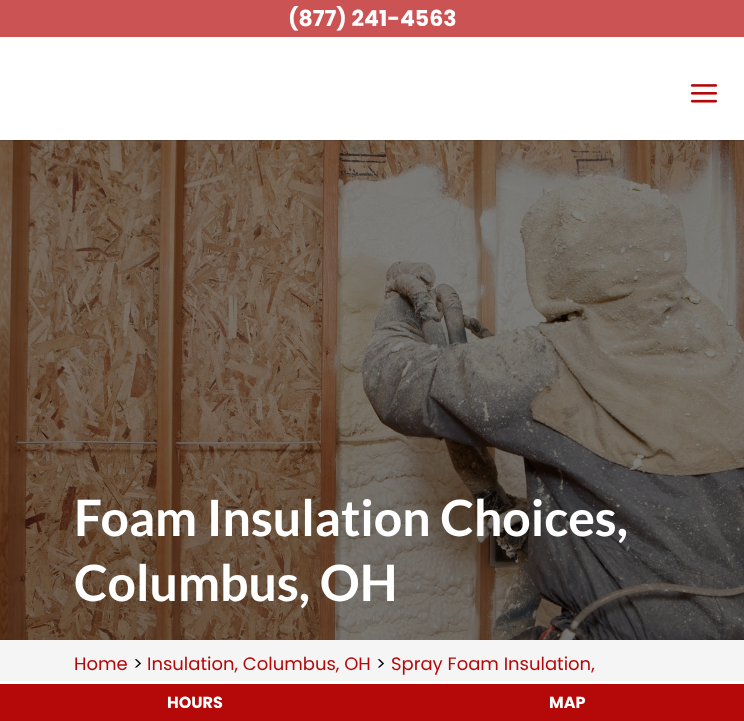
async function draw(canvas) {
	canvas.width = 744;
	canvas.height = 721;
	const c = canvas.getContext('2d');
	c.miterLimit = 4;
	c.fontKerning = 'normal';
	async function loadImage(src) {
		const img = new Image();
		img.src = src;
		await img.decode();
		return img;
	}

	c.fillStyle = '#fff';
	c.fillRect(0, 0, 744, 721);
	c.fillStyle = '#cb5353';
	c.fillRect(0, 0, 744, 37);
	c.font = 'bold 22px Poppins';
	c.fillStyle = '#fff';
	c.fillText('(877) 241-4563', 288, 26);
	c.fillStyle = '#b50909';
	c.fillRect(0, 684, 744, 37);
	c.font = 'bold 16px Poppins';
	c.fillStyle = '#fff';
	c.fillText('HOURS', 167, 708);
	c.fillText('MAP', 549, 708);
	c.drawImage(await loadImage('img1.png'), 0, 140, 744, 500);
	c.font = 'bold 50px Lato';
	c.fillText('Foam Insulation Choices,', 74, 536);
	c.fillText('Columbus, OH', 74, 601);
	c.fillStyle = '#f5f5f5';
	c.fillRect(0, 640, 744, 41);
	c.font = '18px Poppins';
	c.fillStyle = '#b50909';
	c.fillText('Home', 74, 670);
	c.fillStyle = '#000';
	c.fillText('>', 133, 670);
	c.fillStyle = '#b50909';
	c.fillText('Insulation, Columbus, OH', 147, 670);
	c.fillStyle = '#000';
	c.fillText('>', 376, 670);
	c.fillStyle = '#b50909';
	c.fillText('Spray Foam Insulation,', 391, 670);
	c.fillStyle = '#0000001a';
	c.fillRect(0, 140, 744, 1);
	c.drawImage(await loadImage('img2.png'), 690, 84, 28, 19);
}

draw(document.querySelector('canvas'));
